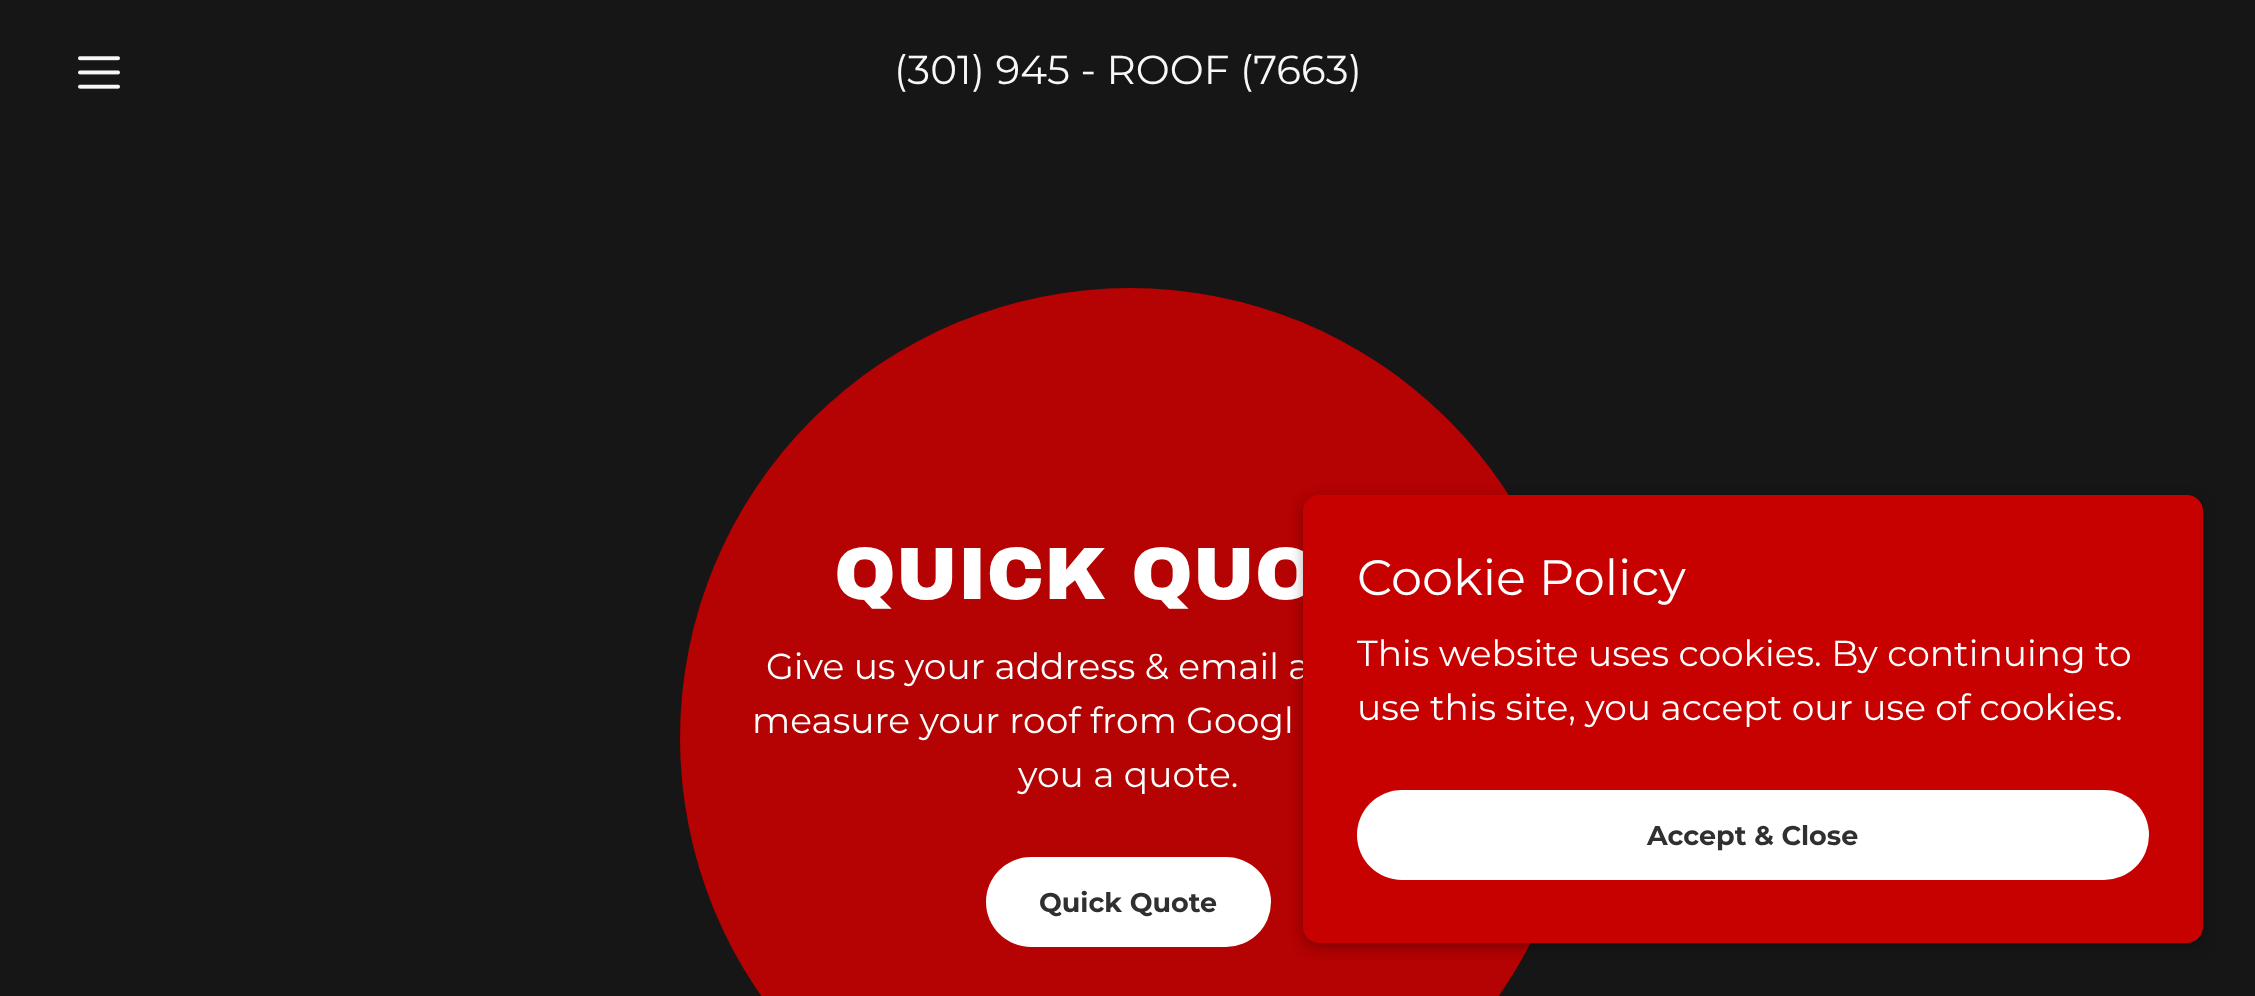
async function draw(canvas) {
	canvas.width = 2255;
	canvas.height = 996;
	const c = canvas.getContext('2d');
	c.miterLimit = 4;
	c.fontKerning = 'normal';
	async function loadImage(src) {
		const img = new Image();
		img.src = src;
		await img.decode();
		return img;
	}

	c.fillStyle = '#161616';
	c.fillRect(0, 0, 2255, 996);
	c.drawImage(await loadImage('img1.png'), 78, 56, 42, 33);
	c.font = '40.5px Montserrat';
	c.fillStyle = '#f7f7f7';
	c.fillText('(301) 945 - ROOF (7663)', 894, 84);
	c.fillStyle = '#b50202';
	c.beginPath();
	c.arc(1130, 738, 450, 0, 2 * Math.PI);
	c.fill();
	c.font = '900 74.25px Archivo Black';
	c.fillStyle = '#fff';
	c.fillText('QUICK QUO', 834, 599);
	c.font = '36px Montserrat';
	for (const [text, x, y] of [
		['Give us your address & email a', 766, 679],
		['measure your roof from Googl', 752, 733],
		['you a quote.', 1018, 787],
	]) {
		c.fillText(text, x, y);
	}
	c.beginPath();
	c.roundRect(986, 857, 285, 90, 45);
	c.fill();
	c.font = 'bold 27px Montserrat';
	c.fillStyle = '#303030';
	c.fillText('Quick Quote', 1039, 912);
	c.fillStyle = '#0000004d';
	c.filter = 'blur(7px)';
	c.beginPath();
	c.roundRect(1303, 500, 900, 447, 16);
	c.fill();
	c.filter = 'none';
	c.fillStyle = '#c70000';
	c.beginPath();
	c.roundRect(1303, 495, 900, 448, 16);
	c.fill();
	c.font = '49.5px Montserrat';
	c.fillStyle = '#fff';
	c.fillText('Cookie Policy', 1357, 595);
	c.font = '36px Montserrat';
	c.fillText('This website uses cookies. By continuing to', 1357, 666);
	c.fillText('use this site, you accept our use of cookies.', 1357, 720);
	c.beginPath();
	c.roundRect(1357, 790, 792, 90, 45);
	c.fill();
	c.font = 'bold 27px Montserrat';
	c.fillStyle = '#303030';
	c.fillText('Accept & Close', 1647, 845);
}

draw(document.querySelector('canvas'));
